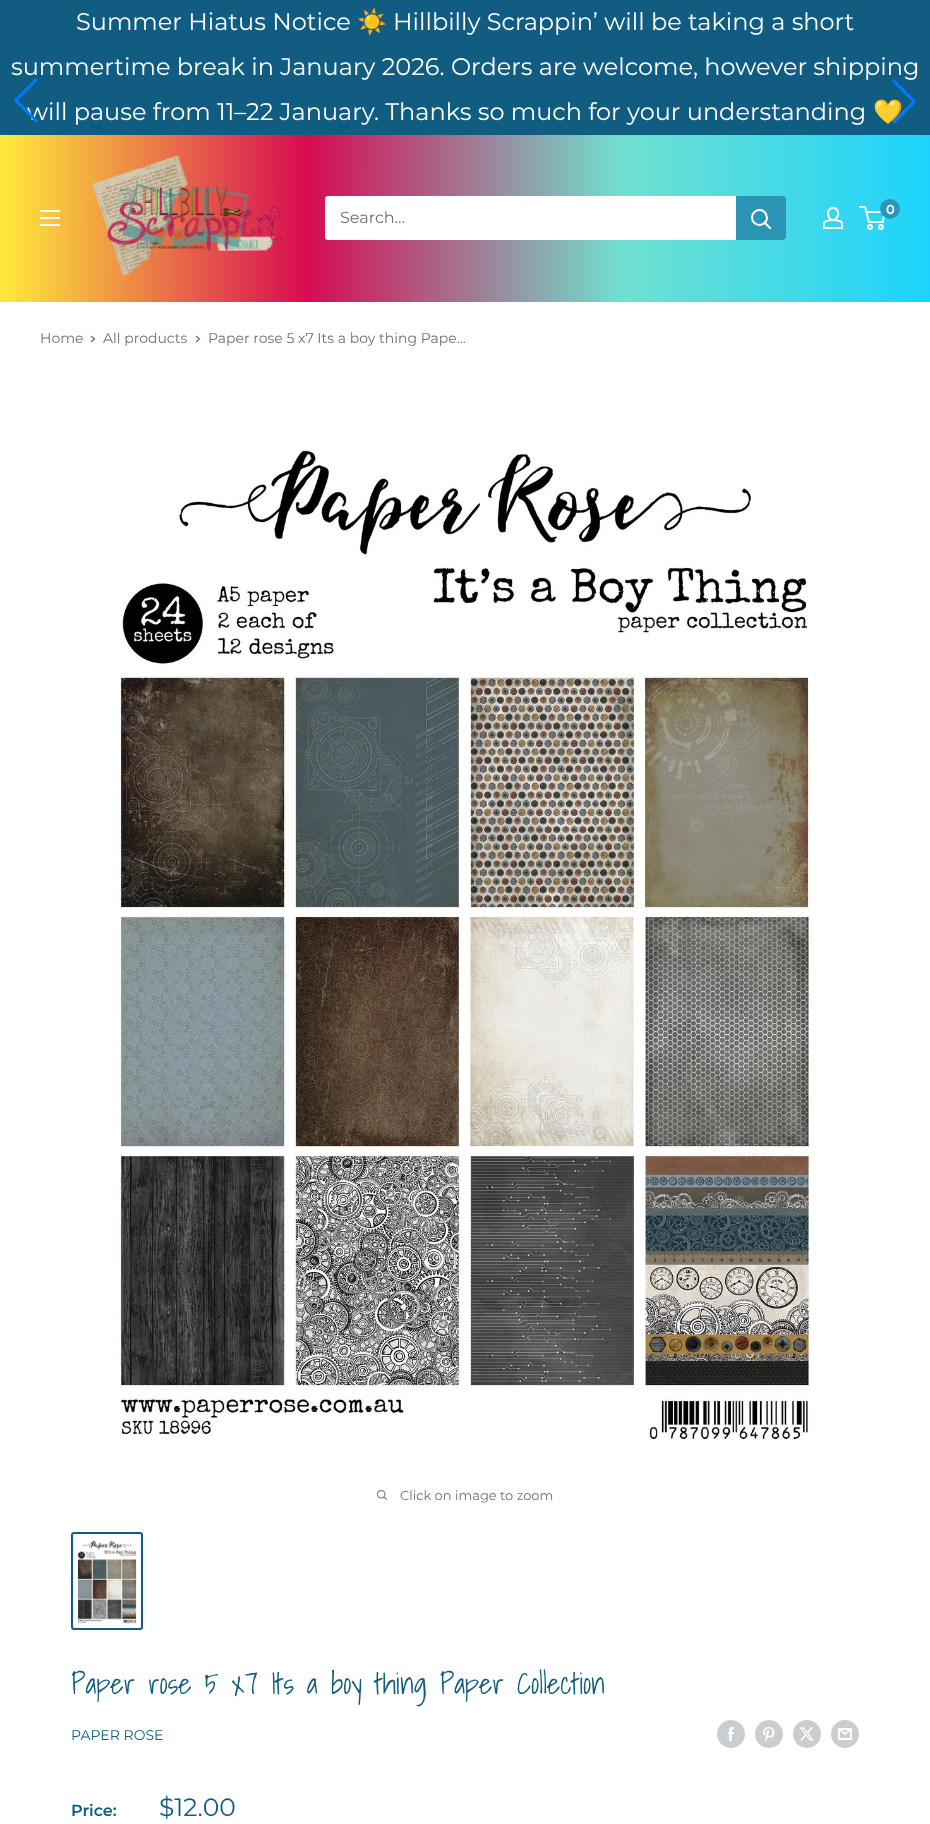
async function draw(canvas) {
	canvas.width = 930;
	canvas.height = 1824;
	const c = canvas.getContext('2d');
	c.miterLimit = 4;
	c.fontKerning = 'normal';
	async function loadImage(src) {
		const img = new Image();
		img.src = src;
		await img.decode();
		return img;
	}
	let gradient;

	c.fillStyle = '#fff';
	c.fillRect(0, 0, 930, 1824);
	c.fillStyle = '#115d81';
	c.fillRect(0, 0, 930, 135);
	c.font = '24px Montserrat';
	c.fillStyle = '#fff';
	c.fillText('Summer Hiatus Notice', 76, 30);
	c.font = '24px Noto Color Emoji';
	c.fillText('☀️', 357, 30);
	c.font = '24px Montserrat';
	for (const [text, x, y] of [
		['Hillbilly Scrappin’ will be taking a short', 393, 30],
		['summertime break in January 2026. Orders are welcome, however shipping', 11, 75],
		['will pause from 11–22 January. Thanks so much for your understanding', 27, 120],
	]) {
		c.fillText(text, x, y);
	}
	c.font = '24px Noto Color Emoji';
	c.fillText('💛', 873, 120);
	c.drawImage(await loadImage('img1.png'), 14, 79, 24, 44);
	c.drawImage(await loadImage('img2.png'), 892, 79, 24, 44);
	gradient = c.createLinearGradient(930, 219, 0, 218);
	gradient.addColorStop(0, '#1bd3fc');
	gradient.addColorStop(0.33, '#70e0d0');
	gradient.addColorStop(0.67, '#d70b52');
	gradient.addColorStop(1, '#ffeb3b');
	c.fillStyle = gradient;
	c.fillRect(0, 135, 930, 167);
	c.drawImage(await loadImage('img3.png'), 40, 210, 20, 16);
	c.drawImage(await loadImage('img4.png'), 92, 155, 190, 122);
	c.fillStyle = '#fff';
	c.beginPath();
	c.roundRect(325, 196, 461, 44, 3);
	c.fill();
	c.font = '16px Montserrat';
	c.fillStyle = '#677279';
	c.fillText('Search...', 340, 223);
	c.fillStyle = '#2c95b5';
	c.beginPath();
	c.roundRect(736, 196, 50, 44, [0, 3, 3, 0]);
	c.fill();
	c.beginPath();
	c.moveTo(770, 228);
	c.lineTo(765, 223);
	c.strokeStyle = '#fff';
	c.lineWidth = 2;
	c.lineCap = 'square';
	c.stroke();
	c.beginPath();
	c.arc(759.5, 217.5, 7.5, 0, 2 * Math.PI);
	c.stroke();
	c.drawImage(await loadImage('img5.png'), 823, 207, 20, 22);
	c.beginPath();
	c.arc(870, 227, 2, 0, 2 * Math.PI);
	c.stroke();
	c.beginPath();
	c.arc(881, 227, 2, 0, 2 * Math.PI);
	c.stroke();
	c.beginPath();
	c.moveTo(866.5, 212);
	c.lineTo(884.5, 212);
	c.lineTo(883, 222);
	c.lineTo(869, 222);
	c.lineTo(865, 207);
	c.lineTo(859, 207);
	c.lineCap = 'butt';
	c.stroke();
	c.beginPath();
	c.arc(890, 209, 10, 0, 2 * Math.PI);
	c.fill();
	c.font = '600 13px Montserrat';
	c.fillStyle = '#fff';
	c.fillText('0', 886, 214);
	c.font = '14px Montserrat';
	c.fillStyle = '#677279';
	c.fillText('Home', 40, 343);
	c.beginPath();
	c.moveTo(91.5, 336.5);
	c.lineTo(94.5, 339);
	c.lineTo(91.5, 341.5);
	c.strokeStyle = '#677279';
	c.lineWidth = 1.3;
	c.lineCap = 'square';
	c.stroke();
	c.fillText('All products', 103, 343);
	c.beginPath();
	c.moveTo(196.5, 336.5);
	c.lineTo(199.5, 339);
	c.lineTo(196.5, 341.5);
	c.stroke();
	c.fillText('Paper rose 5 x7 Its a boy thing Pape...', 208, 343);
	c.drawImage(await loadImage('img6.png'), 119, 450, 693, 990);
	c.drawImage(await loadImage('img7.png'), 377, 1490, 10, 10);
	c.font = '13px Montserrat';
	c.fillText('Click on image to zoom', 400, 1500);
	c.beginPath();
	c.roundRect(72, 1533, 70, 96, 2);
	c.strokeStyle = '#115d81';
	c.lineWidth = 2;
	c.stroke();
	c.drawImage(await loadImage('img8.png'), 77, 1540, 61, 84);
	c.font = '29px Shadows Into Light';
	c.fillStyle = '#115d81';
	c.fillText('Paper rose 5 x7 Its a boy thing Paper Collection', 71, 1694);
	c.font = '14px Montserrat';
	c.fillText('PAPER ROSE', 71, 1740);
	c.drawImage(await loadImage('img9.png'), 717, 1720, 28, 28);
	c.drawImage(await loadImage('img10.png'), 755, 1720, 28, 28);
	c.drawImage(await loadImage('img11.png'), 793, 1720, 28, 28);
	c.drawImage(await loadImage('img12.png'), 831, 1720, 28, 28);
	c.font = '600 16px Montserrat';
	c.fillText('Price:', 71, 1816);
	c.font = '25px Montserrat';
	c.fillText('$12.00', 159, 1816);
}

draw(document.querySelector('canvas'));
